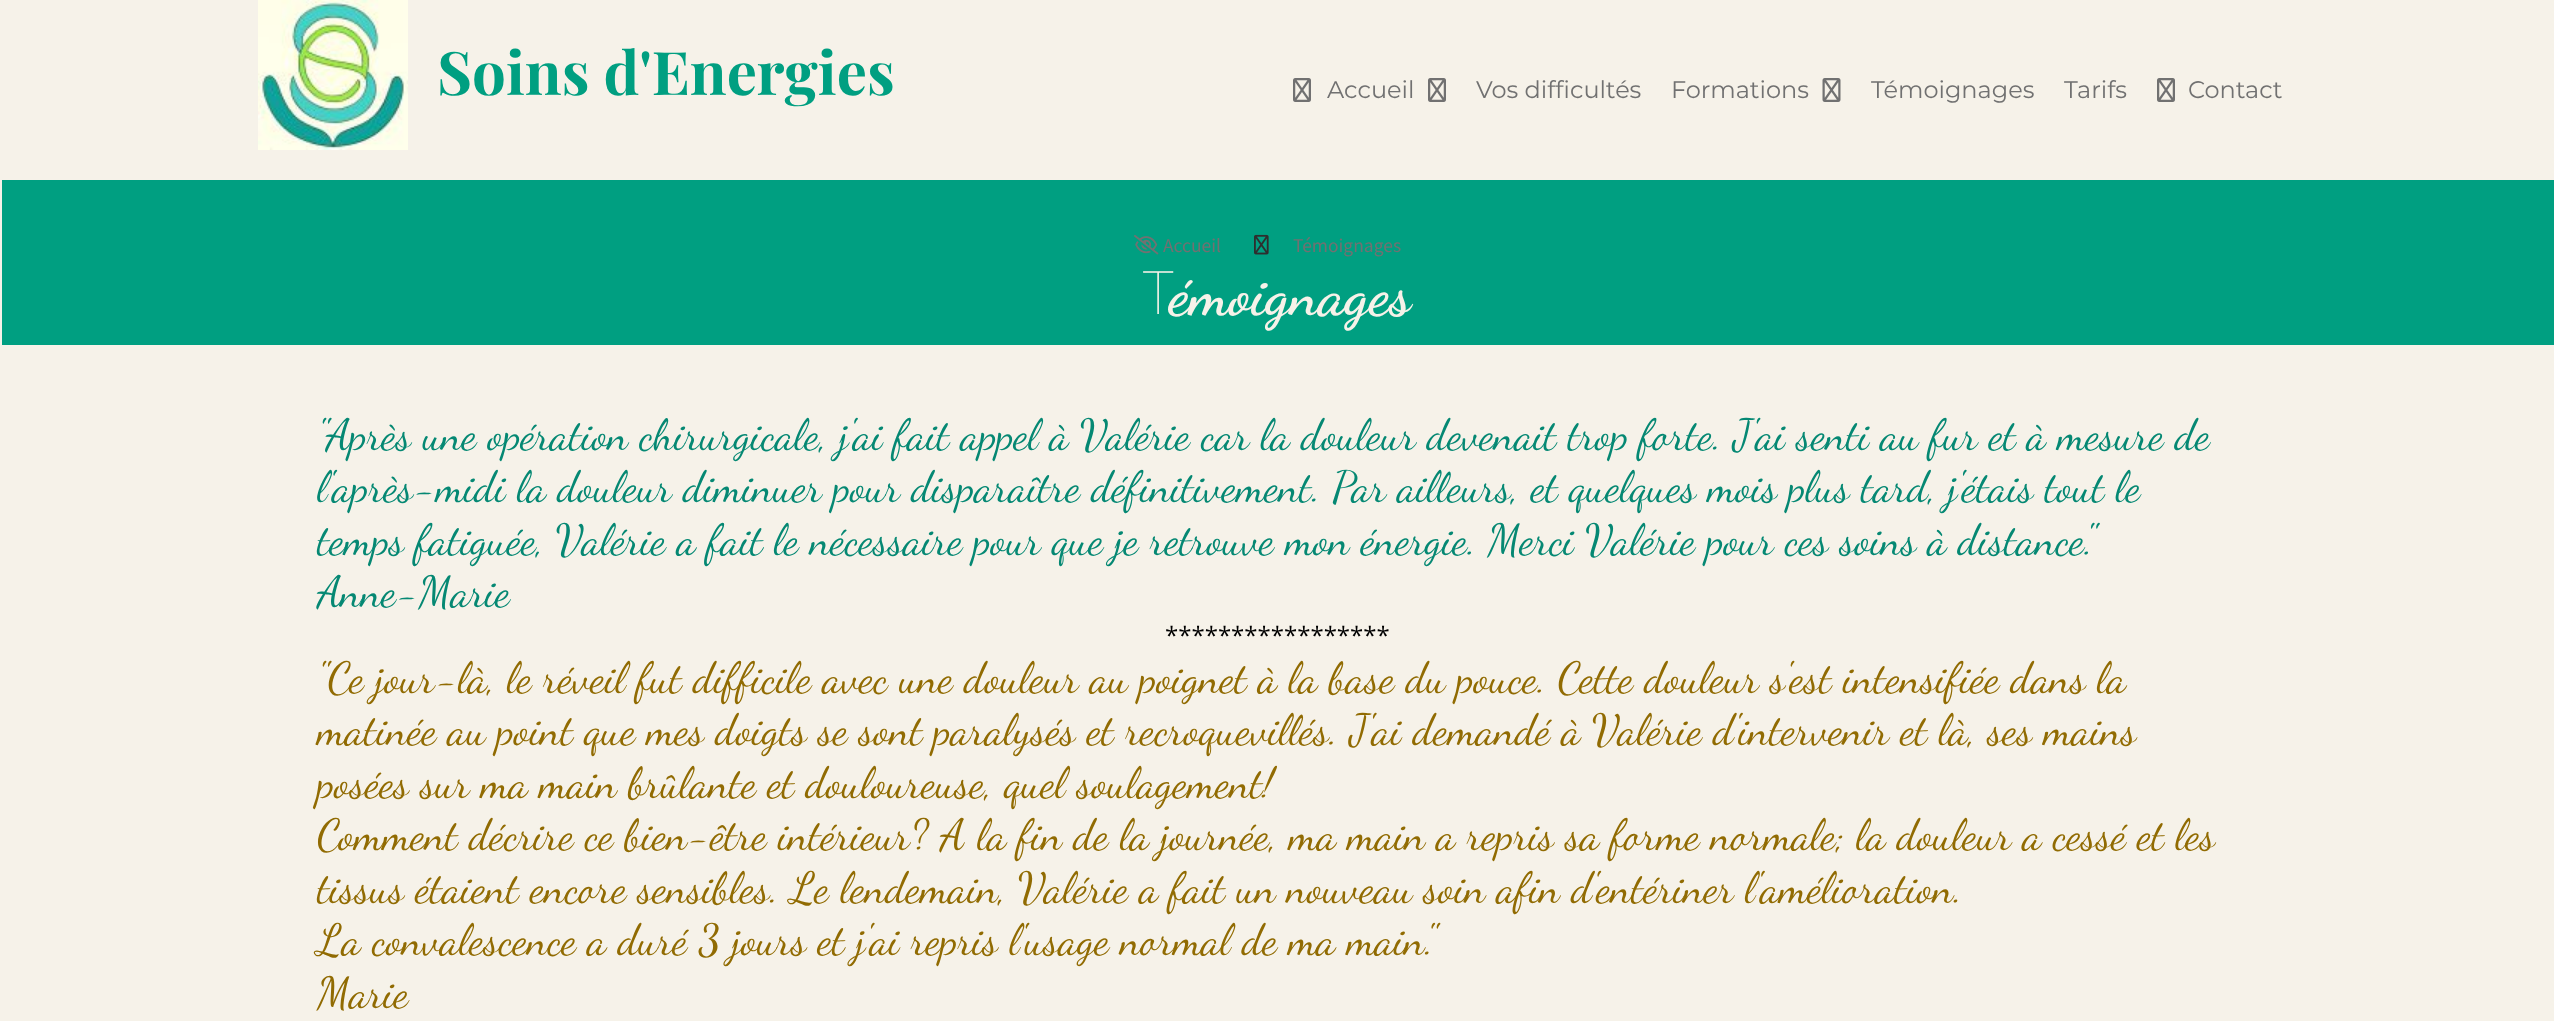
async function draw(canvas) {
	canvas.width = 2554;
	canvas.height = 1021;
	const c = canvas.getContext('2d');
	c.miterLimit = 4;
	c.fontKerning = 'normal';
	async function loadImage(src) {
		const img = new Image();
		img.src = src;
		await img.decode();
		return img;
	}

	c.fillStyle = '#f6f2e9';
	c.fillRect(0, 0, 2554, 1021);
	c.drawImage(await loadImage('img1.png'), 258, 0, 150, 150);
	c.font = 'bold 60px Playfair Display';
	c.fillStyle = '#009f81';
	c.fillText('Soins d\'Energies', 437, 95);
	c.drawImage(await loadImage('img2.png'), 1293, 78, 18, 24);
	c.font = '24px Montserrat';
	c.fillStyle = '#717171';
	c.fillText('Accueil', 1327, 98);
	c.drawImage(await loadImage('img2.png'), 1428, 78, 18, 24);
	c.fillText('Vos difficultés', 1476, 98);
	c.fillText('Formations', 1671, 98);
	c.drawImage(await loadImage('img3.png'), 1822, 78, 19, 24);
	c.fillText('Témoignages', 1871, 98);
	c.fillText('Tarifs', 2064, 98);
	c.drawImage(await loadImage('img2.png'), 2157, 78, 18, 24);
	c.fillText('Contact', 2188, 98);
	c.fillStyle = '#009f81';
	c.fillRect(2, 180, 2552, 165);
	c.drawImage(await loadImage('img4.png'), 1134, 235, 25, 20);
	c.font = '19.5px Source Sans Pro';
	c.fillStyle = '#717171';
	c.fillText('Accueil', 1163, 252);
	c.drawImage(await loadImage('img5.png'), 1254, 234, 15, 21);
	c.fillText('Témoignages', 1293, 252);
	c.font = '100 60px Noto Sans';
	c.fillStyle = '#f6f2e9';
	c.fillText('T', 1143, 314);
	c.font = 'bold 60px Dancing Script';
	c.fillText('émoignages', 1169, 314);
	c.font = '43.5px Dancing Script';
	c.fillStyle = '#058873';
	for (const [text, x, y] of [
		['"Après une opération chirurgicale, j\'ai fait appel à Valérie car la douleur devenait trop forte. J\'ai senti au fur et à mesure de', 317, 449],
		['l\'après-midi la douleur diminuer pour disparaître définitivement. Par ailleurs, et quelques mois plus tard, j\'étais tout le', 317, 501],
		['temps fatiguée, Valérie a fait le nécessaire pour que je retrouve mon énergie. Merci Valérie pour ces soins à distance."', 317, 554],
		['Anne-Marie', 317, 606],
	]) {
		c.fillText(text, x, y);
	}
	c.font = '24px Open Sans';
	c.fillStyle = '#000';
	c.fillText('*****************', 1165, 644);
	c.font = '43.5px Dancing Script';
	c.fillStyle = '#916b02';
	for (const [text, x, y] of [
		['"Ce jour-là, le réveil fut difficile avec une douleur au poignet à la base du pouce. Cette douleur s\'est intensifiée dans la', 317, 692],
		['matinée au point que mes doigts se sont paralysés et recroquevillés. J\'ai demandé à Valérie d\'intervenir et là, ses mains', 317, 744],
		['posées sur ma main brûlante et douloureuse, quel soulagement!', 317, 797],
		['Comment décrire ce bien-être intérieur? A la fin de la journée, ma main a repris sa forme normale; la douleur a cessé et les', 317, 849],
		['tissus étaient encore sensibles. Le lendemain, Valérie a fait un nouveau soin afin d\'entériner l\'amélioration.', 317, 902],
		['La convalescence a duré 3 jours et j\'ai repris l\'usage normal de ma main."', 317, 954],
		['Marie', 317, 1007],
	]) {
		c.fillText(text, x, y);
	}
}

draw(document.querySelector('canvas'));
